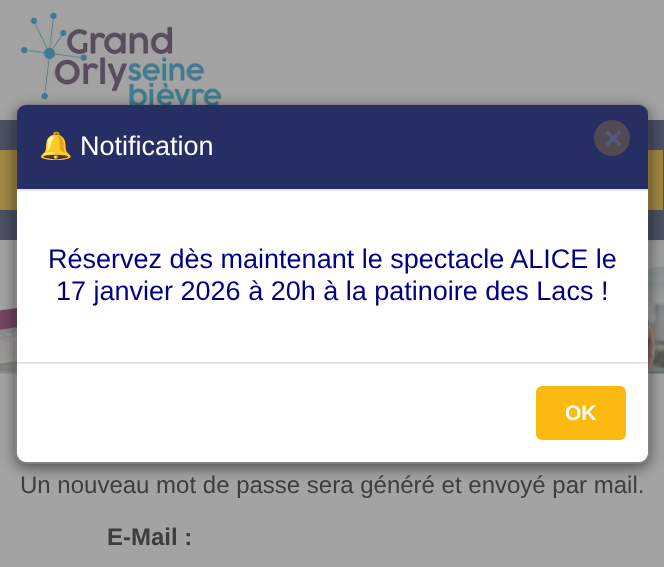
async function draw(canvas) {
	canvas.width = 664;
	canvas.height = 567;
	const c = canvas.getContext('2d');
	c.miterLimit = 4;
	c.fontKerning = 'normal';
	async function loadImage(src) {
		const img = new Image();
		img.src = src;
		await img.decode();
		return img;
	}

	c.fillStyle = '#a3a3a3';
	c.fillRect(0, 0, 664, 567);
	c.drawImage(await loadImage('img1.png'), 20, 3, 207, 105);
	c.fillStyle = '#4c5065';
	c.fillRect(0, 120, 664, 120);
	c.drawImage(await loadImage('img2.png'), 0, 240, 664, 134);
	c.fillStyle = '#a28744';
	c.fillRect(0, 150, 17, 60);
	c.fillRect(648, 150, 15, 60);
	c.save();
	c.beginPath();
	c.moveTo(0, 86);
	c.lineTo(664, 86);
	c.lineTo(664, 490);
	c.lineTo(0, 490);
	c.closePath();
	c.moveTo(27, 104);
	c.lineTo(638, 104);
	c.bezierCurveTo(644.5, 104, 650, 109.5, 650, 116);
	c.lineTo(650, 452);
	c.bezierCurveTo(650, 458.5, 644.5, 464, 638, 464);
	c.lineTo(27, 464);
	c.bezierCurveTo(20.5, 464, 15, 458.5, 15, 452);
	c.lineTo(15, 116);
	c.bezierCurveTo(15, 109.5, 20.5, 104, 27, 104);
	c.closePath();
	c.clip('evenodd');
	c.fillStyle = '#00000080';
	c.filter = 'blur(7px)';
	c.beginPath();
	c.roundRect(15, 108, 635, 360, 12);
	c.fill();
	c.filter = 'none';
	c.restore();
	c.fillStyle = '#fff';
	c.beginPath();
	c.roundRect(17, 105, 631, 357, 11);
	c.fill();
	c.beginPath();
	c.roundRect(16, 105, 633, 358, 11);
	c.strokeStyle = '#00000033';
	c.lineWidth = 2;
	c.stroke();
	c.fillStyle = '#262e64';
	c.beginPath();
	c.roundRect(17, 105, 631, 86, [9, 9, 0, 0]);
	c.fill();
	c.fillStyle = '#e5e5e5';
	c.fillRect(17, 189, 631, 2);
	c.font = '27px Noto Color Emoji';
	c.fillStyle = '#fff';
	c.fillText('🔔', 39, 155);
	c.font = '27px Liberation Sans';
	c.fillText('Notification', 80, 155);
	c.fillStyle = '#514a53';
	c.beginPath();
	c.arc(612, 138, 18, 0, 2 * Math.PI);
	c.fill();
	c.font = 'bold 32px Liberation Sans';
	c.fillStyle = '#515883';
	c.fillText('×', 604, 149);
	c.font = '27px Liberation Sans';
	c.fillStyle = '#000080';
	c.fillText('Réservez dès maintenant le spectacle ALICE le', 48, 268);
	c.fillText('17 janvier 2026 à 20h à la patinoire des Lacs !', 56, 300);
	c.fillStyle = '#fff';
	c.beginPath();
	c.roundRect(17, 362, 631, 100, [0, 0, 9, 9]);
	c.fill();
	c.fillStyle = '#e5e5e5';
	c.fillRect(17, 362, 631, 2);
	c.fillStyle = '#fbb911';
	c.beginPath();
	c.roundRect(536, 386, 90, 54, 6);
	c.fill();
	c.font = 'bold 21px Liberation Sans';
	c.fillStyle = '#fff';
	c.fillText('OK', 565, 420);
	c.font = '24px Liberation Sans';
	c.fillStyle = '#3d3d3d';
	c.fillText('Un nouveau mot de passe sera généré et envoyé par mail.', 20, 493);
	c.font = 'bold 24px Liberation Sans';
	c.fillText('E-Mail :', 107, 545);
}

draw(document.querySelector('canvas'));
